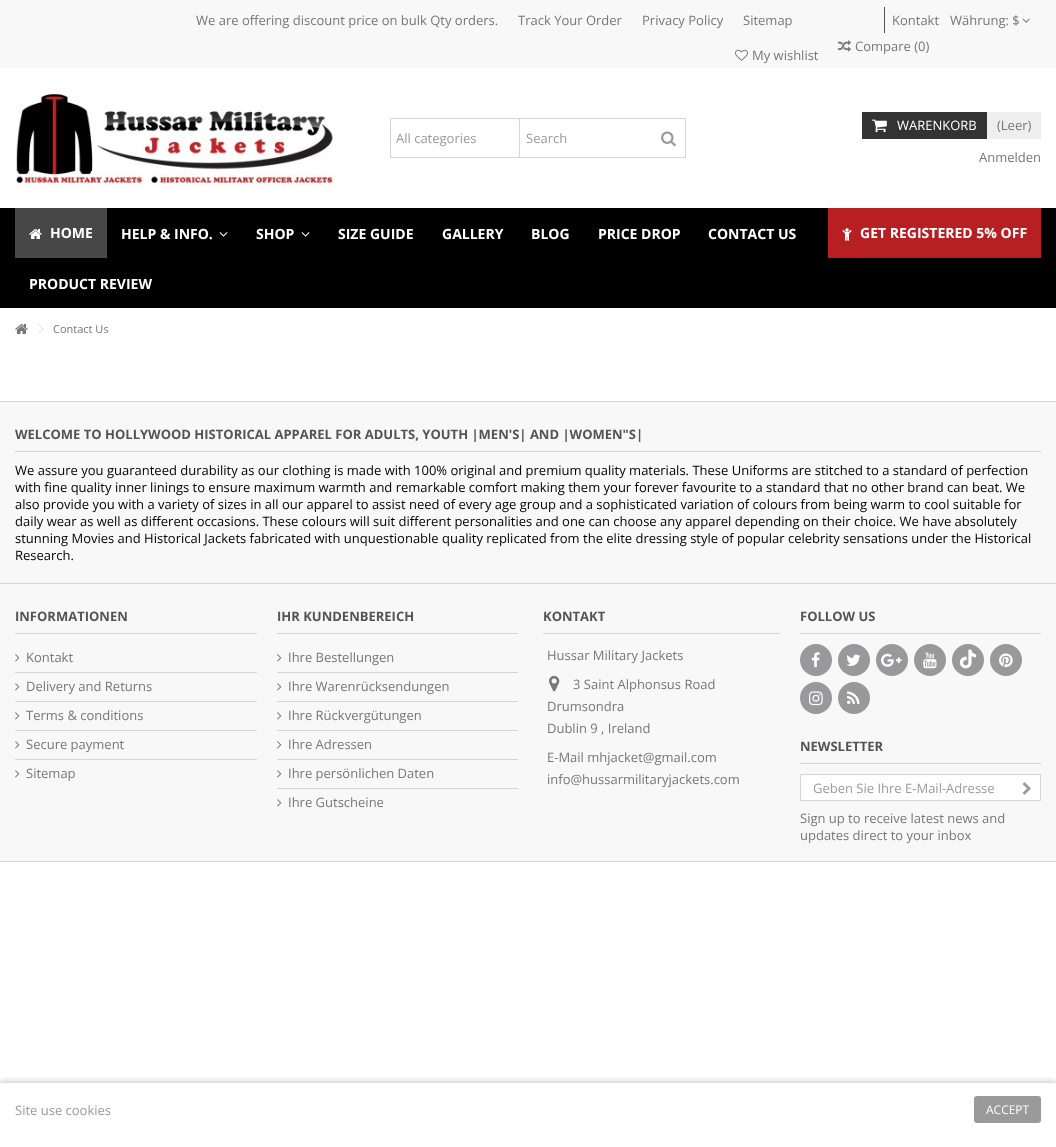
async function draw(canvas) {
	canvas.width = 1056;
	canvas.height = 1147;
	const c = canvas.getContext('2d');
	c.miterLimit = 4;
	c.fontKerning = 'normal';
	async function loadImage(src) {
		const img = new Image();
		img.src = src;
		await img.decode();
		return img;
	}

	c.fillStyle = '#fff';
	c.fillRect(0, 0, 1056, 1147);
	c.fillStyle = '#f8f8f8';
	c.fillRect(0, 0, 1056, 68);
	c.font = '13px Open Sans';
	c.fillStyle = '#777';
	for (const [text, x, y] of [
		['We are offering discount price on bulk Qty orders.', 196, 25],
		['Track Your Order', 518, 25],
		['Privacy Policy', 642, 25],
		['Sitemap', 743, 25],
	]) {
		c.fillText(text, x, y);
	}
	c.fillStyle = '#515151';
	c.fillRect(884, 7, 1, 26);
	c.fillStyle = '#777';
	c.fillText('Kontakt', 892, 25);
	c.fillText('Währung: $', 950, 25);
	c.drawImage(await loadImage('img1.png'), 1022, 18, 8, 5);
	c.drawImage(await loadImage('img2.png'), 838, 40, 13, 12);
	c.fillText('Compare (0)', 855, 51);
	c.drawImage(await loadImage('img3.png'), 735, 49, 13, 12);
	c.fillText('My wishlist', 752, 60);
	c.drawImage(await loadImage('img4.png'), 15, 88, 320, 100);
	c.fillStyle = '#333';
	c.fillRect(862, 112, 125, 27);
	c.drawImage(await loadImage('img5.png'), 872, 119, 15, 14);
	c.fillStyle = '#fff';
	c.fillText('WARENKORB', 897, 130);
	c.fillStyle = '#eee';
	c.fillRect(987, 112, 54, 27);
	c.fillStyle = '#777';
	c.fillText('(Leer)', 997, 130);
	c.strokeStyle = '#d6d4d4';
	c.strokeRect(390.5, 118.5, 295, 39);
	c.strokeRect(390.5, 118.5, 129, 39);
	c.fillStyle = '#9c9b9b';
	c.fillText('All categories', 396, 143);
	c.fillText('Search', 526, 143);
	c.drawImage(await loadImage('img6.png'), 661, 131, 15, 16);
	c.fillStyle = '#777';
	c.fillText('Anmelden', 979, 162);
	c.fillStyle = '#000';
	c.fillRect(0, 208, 1056, 100);
	c.fillStyle = '#474747';
	c.fillRect(15, 208, 92, 50);
	c.drawImage(await loadImage('img7.png'), 29, 229, 13, 10);
	c.font = 'bold 14px Open Sans';
	c.fillStyle = '#fff';
	c.fillText('HOME', 50, 238);
	c.fillText('HELP & INFO.', 121, 239);
	c.drawImage(await loadImage('img8.png'), 219, 232, 9, 5);
	c.fillText('SHOP', 256, 239);
	c.drawImage(await loadImage('img8.png'), 301, 232, 9, 5);
	for (const [text, x, y] of [
		['SIZE GUIDE', 338, 239],
		['GALLERY', 442, 239],
		['BLOG', 531, 239],
		['PRICE DROP', 598, 239],
		['CONTACT US', 708, 239],
	]) {
		c.fillText(text, x, y);
	}
	c.fillStyle = '#b81f23';
	c.fillRect(828, 208, 213, 50);
	c.drawImage(await loadImage('img9.png'), 842, 228, 10, 13);
	c.fillStyle = '#fff';
	c.fillText('GET REGISTERED 5% OFF', 860, 238);
	c.fillText('PRODUCT REVIEW', 29, 289);
	c.drawImage(await loadImage('img10.png'), 15, 324, 13, 10);
	c.fillStyle = '#ddd';
	c.beginPath();
	c.moveTo(38, 323.5);
	c.lineTo(43.5, 329);
	c.lineTo(43, 329.5);
	c.lineTo(37.5, 324);
	c.closePath();
	c.fill();
	c.beginPath();
	c.moveTo(43, 328.5);
	c.lineTo(43.5, 329);
	c.lineTo(38, 334.5);
	c.lineTo(37.5, 334);
	c.closePath();
	c.fill();
	c.font = '11px Open Sans';
	c.fillStyle = '#777';
	c.fillText('Contact Us', 53, 333);
	for (const [x, y, w, h, color] of [
		[0, 402, 1056, 181, '#f8f8f8'],
		[0, 401, 1056, 1, '#d6d4d4'],
		[15, 451, 1026, 1, '#d6d4d4'],
	]) {
		c.fillStyle = color;
		c.fillRect(x, y, w, h);
	}
	c.font = 'bold 13px Open Sans';
	c.fillStyle = '#555454';
	c.fillText('WELCOME TO HOLLYWOOD HISTORICAL APPAREL FOR ADULTS, YOUTH |MEN\'S| AND |WOMEN"S|', 15, 439);
	c.font = '13px Open Sans';
	c.fillStyle = '#000';
	for (const [text, x, y] of [
		['We assure you guaranteed durability as our clothing is made with 100% original and premium quality materials. These Uniforms are stitched to a standard of perfection', 15, 475],
		['with fine quality inner linings to ensure maximum warmth and remarkable comfort making them your forever favourite to a standard that no other brand can beat. We', 15, 492],
		['also provide you with a variety of sizes in all our apparel to assist need of every age group and a sophisticated variation of colours from being warm to cool suitable for', 15, 509],
		['daily wear as well as different occasions. These colours will suit different personalities and one can choose any apparel depending on their choice. We have absolutely', 15, 526],
		['stunning Movies and Historical Jackets fabricated with unquestionable quality replicated from the elite dressing style of popular celebrity sensations under the Historical', 15, 543],
		['Research.', 15, 560],
	]) {
		c.fillText(text, x, y);
	}
	for (const [x, y, w, h, color] of [
		[0, 584, 1056, 277, '#f8f8f8'],
		[0, 583, 1056, 1, '#d6d4d4'],
		[0, 861, 1056, 1, '#d6d4d4'],
		[15, 633, 242, 1, '#d6d4d4'],
	]) {
		c.fillStyle = color;
		c.fillRect(x, y, w, h);
	}
	c.font = 'bold 13px Open Sans';
	c.fillStyle = '#555454';
	c.fillText('INFORMATIONEN', 15, 621);
	c.drawImage(await loadImage('img11.png'), 15, 654, 5, 8);
	c.font = '13px Open Sans';
	c.fillStyle = '#777';
	c.fillText('Kontakt', 26, 662);
	c.fillStyle = '#d6d4d4';
	c.fillRect(15, 672, 242, 1);
	c.drawImage(await loadImage('img11.png'), 15, 683, 5, 8);
	c.fillStyle = '#777';
	c.fillText('Delivery and Returns', 26, 691);
	c.fillStyle = '#d6d4d4';
	c.fillRect(15, 701, 242, 1);
	c.drawImage(await loadImage('img11.png'), 15, 712, 5, 8);
	c.fillStyle = '#777';
	c.fillText('Terms & conditions', 26, 720);
	c.fillStyle = '#d6d4d4';
	c.fillRect(15, 730, 242, 1);
	c.drawImage(await loadImage('img11.png'), 15, 741, 5, 8);
	c.fillStyle = '#777';
	c.fillText('Secure payment', 26, 749);
	c.fillStyle = '#d6d4d4';
	c.fillRect(15, 759, 242, 1);
	c.drawImage(await loadImage('img11.png'), 15, 770, 5, 8);
	c.fillStyle = '#777';
	c.fillText('Sitemap', 26, 778);
	c.fillStyle = '#d6d4d4';
	c.fillRect(277, 633, 241, 1);
	c.font = 'bold 13px Open Sans';
	c.fillStyle = '#555454';
	c.fillText('IHR KUNDENBEREICH', 277, 621);
	c.drawImage(await loadImage('img11.png'), 277, 654, 5, 8);
	c.font = '13px Open Sans';
	c.fillStyle = '#777';
	c.fillText('Ihre Bestellungen', 288, 662);
	c.fillStyle = '#d6d4d4';
	c.fillRect(277, 672, 241, 1);
	c.drawImage(await loadImage('img11.png'), 277, 683, 5, 8);
	c.fillStyle = '#777';
	c.fillText('Ihre Warenrücksendungen', 288, 691);
	c.fillStyle = '#d6d4d4';
	c.fillRect(277, 701, 241, 1);
	c.drawImage(await loadImage('img11.png'), 277, 712, 5, 8);
	c.fillStyle = '#777';
	c.fillText('Ihre Rückvergütungen', 288, 720);
	c.fillStyle = '#d6d4d4';
	c.fillRect(277, 730, 241, 1);
	c.drawImage(await loadImage('img11.png'), 277, 741, 5, 8);
	c.fillStyle = '#777';
	c.fillText('Ihre Adressen', 288, 749);
	c.fillStyle = '#d6d4d4';
	c.fillRect(277, 759, 241, 1);
	c.drawImage(await loadImage('img11.png'), 277, 770, 5, 8);
	c.fillStyle = '#777';
	c.fillText('Ihre persönlichen Daten', 288, 778);
	c.fillStyle = '#d6d4d4';
	c.fillRect(277, 788, 241, 1);
	c.drawImage(await loadImage('img11.png'), 277, 799, 5, 8);
	c.fillStyle = '#777';
	c.fillText('Ihre Gutscheine', 288, 807);
	c.fillStyle = '#d6d4d4';
	c.fillRect(543, 633, 237, 1);
	c.font = 'bold 13px Open Sans';
	c.fillStyle = '#555454';
	c.fillText('KONTAKT', 543, 621);
	c.font = '13px Open Sans';
	c.fillStyle = '#777';
	c.fillText('Hussar Military Jackets', 547, 660);
	c.drawImage(await loadImage('img12.png'), 549, 675, 11, 17);
	for (const [text, x, y] of [
		['3 Saint Alphonsus Road', 573, 689],
		['Drumsondra', 547, 711],
		['Dublin 9 , Ireland', 547, 733],
		['E-Mail mhjacket@gmail.com', 547, 762],
		['info@hussarmilitaryjackets.com', 547, 784],
	]) {
		c.fillText(text, x, y);
	}
	c.fillStyle = '#d6d4d4';
	c.fillRect(800, 633, 241, 1);
	c.font = 'bold 13px Open Sans';
	c.fillStyle = '#555454';
	c.fillText('FOLLOW US', 800, 621);
	c.fillStyle = '#99999b';
	c.beginPath();
	c.arc(816, 660, 16, 0, 2 * Math.PI);
	c.fill();
	c.drawImage(await loadImage('img13.png'), 811, 652, 9, 16);
	c.beginPath();
	c.arc(854, 660, 16, 0, 2 * Math.PI);
	c.fill();
	c.drawImage(await loadImage('img14.png'), 846, 654, 15, 12);
	c.beginPath();
	c.arc(892, 660, 16, 0, 2 * Math.PI);
	c.fill();
	c.drawImage(await loadImage('img15.png'), 881, 653, 21, 14);
	c.beginPath();
	c.arc(930, 660, 16, 0, 2 * Math.PI);
	c.fill();
	c.drawImage(await loadImage('img16.png'), 923, 652, 14, 17);
	c.beginPath();
	c.arc(968, 660, 16, 0, 2 * Math.PI);
	c.fill();
	c.drawImage(await loadImage('img17.png'), 959, 649, 18, 20);
	c.beginPath();
	c.arc(1006, 660, 16, 0, 2 * Math.PI);
	c.fill();
	c.drawImage(await loadImage('img18.png'), 999, 653, 14, 15);
	c.beginPath();
	c.arc(816, 698, 16, 0, 2 * Math.PI);
	c.fill();
	c.drawImage(await loadImage('img19.png'), 809, 691, 14, 15);
	c.beginPath();
	c.arc(854, 698, 16, 0, 2 * Math.PI);
	c.fill();
	c.drawImage(await loadImage('img20.png'), 847, 691, 13, 13);
	c.fillStyle = '#d6d4d4';
	c.fillRect(800, 763, 241, 1);
	c.fillStyle = '#555454';
	c.fillText('NEWSLETTER', 800, 751);
	c.fillStyle = '#fff';
	c.beginPath();
	c.rect(800.5, 774.5, 240, 26);
	c.fill();
	c.stroke();
	c.font = '13px Open Sans';
	c.fillStyle = '#9c9b9b';
	c.fillText('Geben Sie Ihre E-Mail-Adresse', 813, 793);
	c.drawImage(await loadImage('img21.png'), 1022, 782, 9, 13);
	c.fillStyle = '#777';
	c.fillText('Sign up to receive latest news and', 800, 823);
	c.fillText('updates direct to your inbox', 800, 840);
	c.save();
	c.beginPath();
	c.rect(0, 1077, 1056, 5);
	c.clip();
	c.fillStyle = '#4d4d4d33';
	c.filter = 'blur(2.5px)';
	c.beginPath();
	c.rect(0, 1080, 1056, 65);
	c.fill();
	c.filter = 'none';
	c.restore();
	c.fillStyle = '#ddd';
	c.fillRect(0, 1082, 1056, 1);
	c.fillStyle = '#9c9b9b';
	c.fillText('Site use cookies', 15, 1115);
	c.fillStyle = '#9a9a9a';
	c.beginPath();
	c.roundRect(974, 1096, 67, 27, 3);
	c.fill();
	c.font = '12px Open Sans';
	c.fillStyle = '#fff';
	c.fillText('ACCEPT', 986, 1114);
}

draw(document.querySelector('canvas'));
